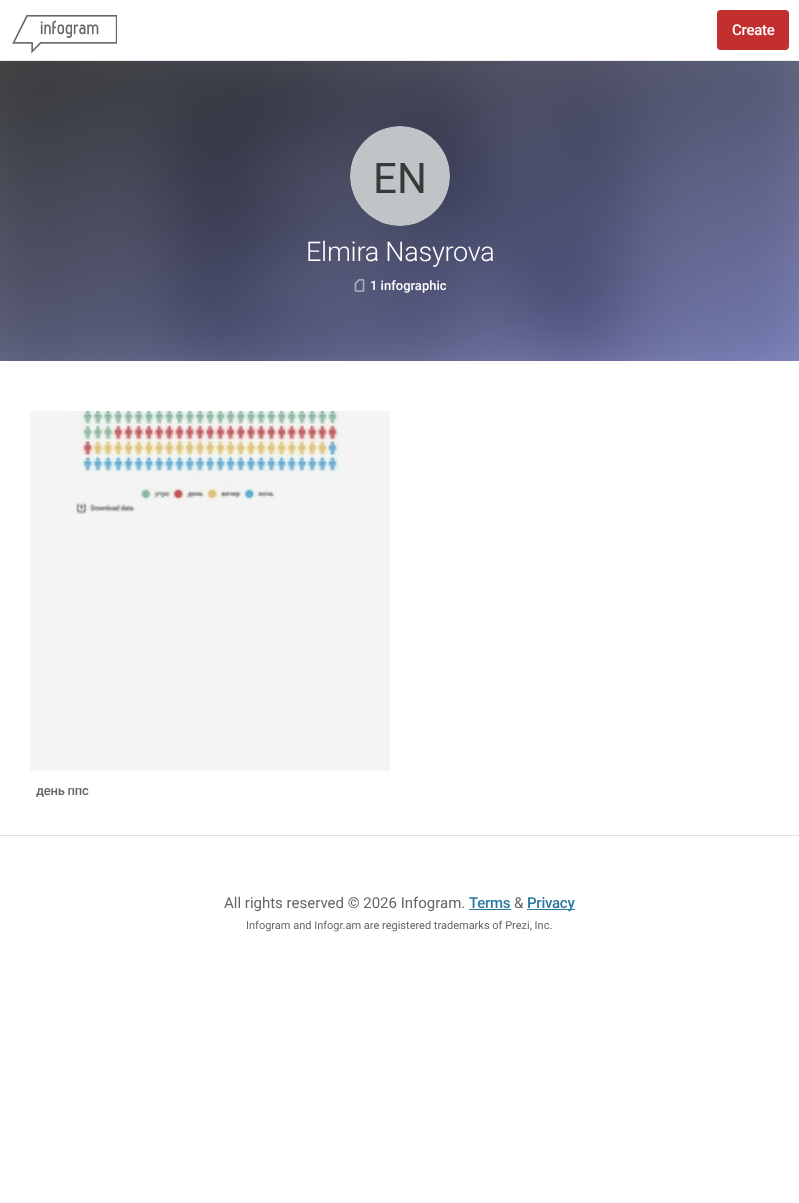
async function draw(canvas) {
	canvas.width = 799;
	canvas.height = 1203;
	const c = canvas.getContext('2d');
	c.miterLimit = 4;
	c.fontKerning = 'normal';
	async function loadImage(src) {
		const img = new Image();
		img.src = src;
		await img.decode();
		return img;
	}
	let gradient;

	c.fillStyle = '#fff';
	c.fillRect(0, 0, 799, 1203);
	c.fillStyle = '#ececf0';
	c.fillRect(0, 60, 799, 1);
	c.drawImage(await loadImage('img1.png'), 12, 15, 105, 39);
	c.fillStyle = '#c32f2f';
	c.beginPath();
	c.roundRect(717, 10, 72, 40, 4);
	c.fill();
	c.letterSpacing = '-0.25px';
	c.font = '500 15px Roboto';
	c.fillStyle = '#fff';
	c.fillText('Create', 732, 35);
	c.drawImage(await loadImage('img2.png'), 0, 61, 799, 300);
	gradient = c.createLinearGradient(301, -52, 498, 474);
	gradient.addColorStop(0, '#01010199');
	gradient.addColorStop(1, '#666dc799');
	c.fillStyle = gradient;
	c.fillRect(0, 61, 799, 300);
	c.drawImage(await loadImage('img3.png'), 350, 126, 100, 100);
	c.font = '300 27px Roboto';
	c.fillStyle = '#fff';
	c.fillText('Elmira Nasyrova', 306, 261);
	c.drawImage(await loadImage('img4.png'), 354, 279, 11, 13);
	c.letterSpacing = '0px';
	c.font = '500 13px Roboto';
	c.fillText('1 infographic', 370, 290);
	c.drawImage(await loadImage('img5.png'), 67, 411, 278, 106);
	c.fillStyle = '#0000000a';
	c.fillRect(30, 411, 360, 360);
	c.letterSpacing = '-0.25px';
	c.fillStyle = '#656565';
	c.fillText('день ппс', 36, 795);
	c.fillStyle = '#e0e0e4';
	c.fillRect(0, 835, 799, 1);
	c.letterSpacing = '0px';
	c.font = '15px Roboto';
	c.fillStyle = '#656565';
	c.fillText('All rights reserved © 2026 Infogram.', 224, 908);
	c.letterSpacing = '-0.25px';
	c.font = '500 15px Roboto';
	c.fillStyle = '#2c78a0';
	c.fillText('Terms', 469, 908);
	c.fillRect(469, 909, 42, 1);
	c.letterSpacing = '0px';
	c.font = '15px Roboto';
	c.fillStyle = '#656565';
	c.fillText('&', 514, 908);
	c.fillStyle = '#2c78a0';
	c.fillRect(527, 909, 48, 1);
	c.letterSpacing = '-0.25px';
	c.font = '500 15px Roboto';
	c.fillText('Privacy', 527, 908);
	c.letterSpacing = '0px';
	c.font = '11px Roboto';
	c.fillStyle = '#656565';
	c.fillText('Infogram and Infogr.am are registered trademarks of Prezi, Inc.', 246, 929);
}

draw(document.querySelector('canvas'));
